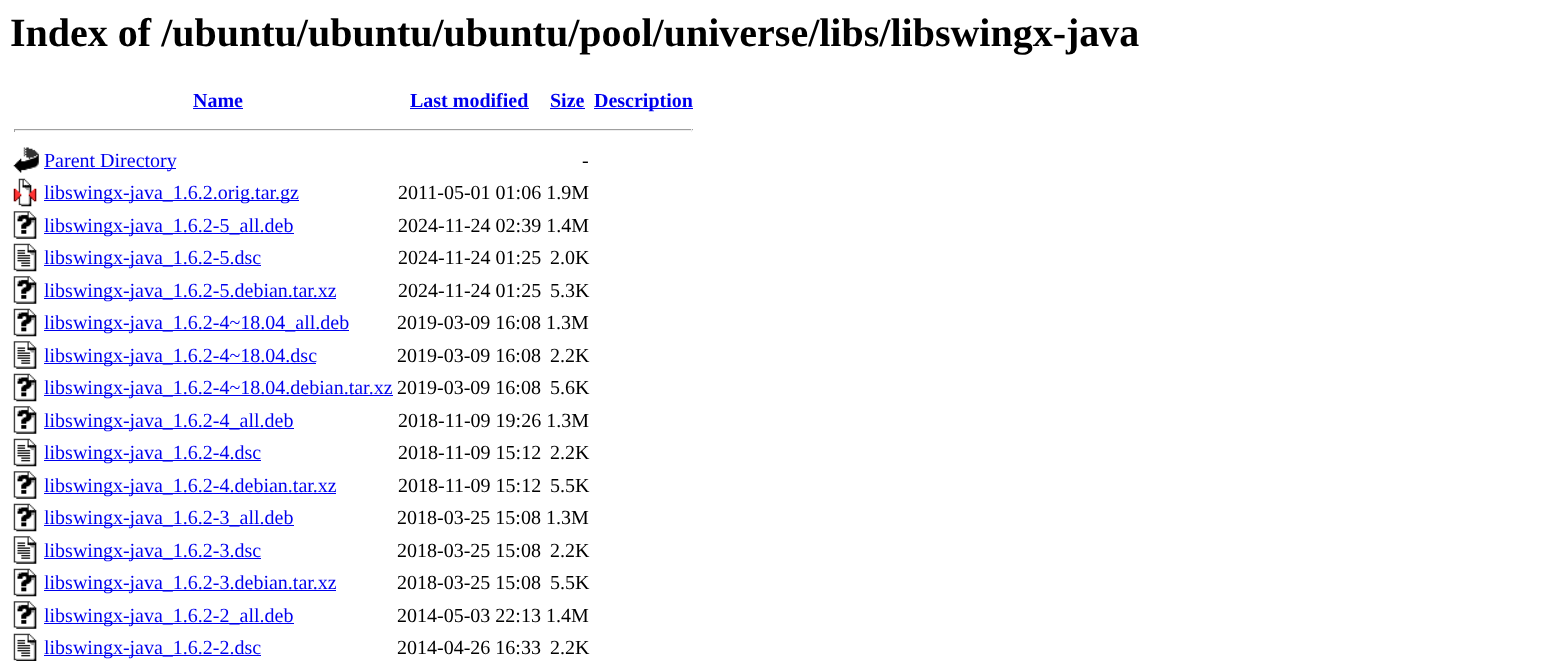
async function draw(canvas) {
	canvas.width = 1541;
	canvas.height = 661;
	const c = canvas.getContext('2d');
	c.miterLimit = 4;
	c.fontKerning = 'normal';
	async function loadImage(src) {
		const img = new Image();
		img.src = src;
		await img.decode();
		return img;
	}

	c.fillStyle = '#fff';
	c.fillRect(0, 0, 1541, 661);
	c.font = 'bold 40px Liberation Serif';
	c.fillStyle = '#000';
	c.fillText('Index of /ubuntu/ubuntu/ubuntu/pool/universe/libs/libswingx-java', 10, 46);
	c.font = 'bold 20px Liberation Serif';
	c.fillStyle = '#00e';
	c.fillText('Name', 193, 107);
	c.fillRect(193, 108, 50, 1);
	c.fillText('Last modified', 410, 107);
	c.fillRect(410, 108, 119, 1);
	c.fillText('Size', 550, 107);
	c.fillRect(550, 108, 35, 1);
	c.fillRect(594, 108, 99, 1);
	c.fillText('Description', 594, 107);
	for (const [x, y, w, h, color] of [
		[14, 129, 679, 1, '#9f9f9f'],
		[691, 129, 1, 3, '#eee'],
		[14, 130, 679, 1, '#eee'],
		[14, 129, 1, 3, '#9f9f9f'],
	]) {
		c.fillStyle = color;
		c.fillRect(x, y, w, h);
	}
	c.drawImage(await loadImage('img1.png'), 13, 147, 26, 26);
	c.fillStyle = '#00e';
	c.fillRect(44, 168, 132, 1);
	c.font = '20px Liberation Serif';
	c.fillText('Parent Directory', 44, 167);
	c.fillStyle = '#000';
	c.fillText('-', 582, 167);
	c.drawImage(await loadImage('img2.png'), 13, 178, 24, 29);
	c.fillStyle = '#00e';
	c.fillRect(44, 200, 255, 1);
	c.fillText('libswingx-java_1.6.2.orig.tar.gz', 44, 199);
	c.fillStyle = '#000';
	c.fillText('2011-05-01 01:06 1.9M', 398, 199);
	c.drawImage(await loadImage('img3.png'), 13, 211, 24, 28);
	c.fillStyle = '#00e';
	c.fillRect(44, 233, 250, 1);
	c.fillText('libswingx-java_1.6.2-5_all.deb', 44, 232);
	c.fillStyle = '#000';
	c.fillText('2024-11-24 02:39 1.4M', 398, 232);
	c.drawImage(await loadImage('img4.png'), 13, 243, 24, 29);
	c.fillStyle = '#00e';
	c.fillRect(44, 265, 217, 1);
	c.fillText('libswingx-java_1.6.2-5.dsc', 44, 264);
	c.fillStyle = '#000';
	c.fillText('2024-11-24 01:25', 398, 264);
	c.fillText('2.0K', 550, 264);
	c.drawImage(await loadImage('img5.png'), 13, 276, 24, 28);
	c.fillStyle = '#00e';
	c.fillRect(44, 298, 292, 1);
	c.fillText('libswingx-java_1.6.2-5.debian.tar.xz', 44, 297);
	c.fillStyle = '#000';
	c.fillText('2024-11-24 01:25', 398, 297);
	c.fillText('5.3K', 550, 297);
	c.drawImage(await loadImage('img6.png'), 13, 308, 24, 29);
	c.fillStyle = '#00e';
	c.fillRect(44, 330, 305, 1);
	c.fillText('libswingx-java_1.6.2-4~18.04_all.deb', 44, 329);
	c.fillStyle = '#000';
	c.fillText('2019-03-09 16:08 1.3M', 397, 329);
	c.drawImage(await loadImage('img7.png'), 13, 341, 24, 28);
	c.fillStyle = '#00e';
	c.fillRect(44, 363, 272, 1);
	c.fillText('libswingx-java_1.6.2-4~18.04.dsc', 44, 362);
	c.fillStyle = '#000';
	c.fillText('2019-03-09 16:08', 397, 362);
	c.fillText('2.2K', 550, 362);
	c.drawImage(await loadImage('img6.png'), 13, 373, 24, 29);
	c.fillStyle = '#00e';
	c.fillRect(44, 395, 349, 1);
	c.fillText('libswingx-java_1.6.2-4~18.04.debian.tar.xz', 44, 394);
	c.fillStyle = '#000';
	c.fillText('2019-03-09 16:08', 397, 394);
	c.fillText('5.6K', 550, 394);
	c.drawImage(await loadImage('img3.png'), 13, 406, 24, 28);
	c.fillStyle = '#00e';
	c.fillRect(44, 428, 250, 1);
	c.fillText('libswingx-java_1.6.2-4_all.deb', 44, 427);
	c.fillStyle = '#000';
	c.fillText('2018-11-09 19:26 1.3M', 398, 427);
	c.drawImage(await loadImage('img4.png'), 13, 438, 24, 29);
	c.fillStyle = '#00e';
	c.fillRect(44, 460, 217, 1);
	c.fillText('libswingx-java_1.6.2-4.dsc', 44, 459);
	c.fillStyle = '#000';
	c.fillText('2018-11-09 15:12', 398, 459);
	c.fillText('2.2K', 550, 459);
	c.drawImage(await loadImage('img3.png'), 13, 471, 24, 28);
	c.fillStyle = '#00e';
	c.fillRect(44, 493, 292, 1);
	c.fillText('libswingx-java_1.6.2-4.debian.tar.xz', 44, 492);
	c.fillStyle = '#000';
	c.fillText('2018-11-09 15:12', 398, 492);
	c.fillText('5.5K', 550, 492);
	c.drawImage(await loadImage('img6.png'), 13, 503, 24, 29);
	c.fillStyle = '#00e';
	c.fillRect(44, 525, 250, 1);
	c.fillText('libswingx-java_1.6.2-3_all.deb', 44, 524);
	c.fillStyle = '#000';
	c.fillText('2018-03-25 15:08 1.3M', 397, 524);
	c.drawImage(await loadImage('img7.png'), 13, 536, 24, 28);
	c.fillStyle = '#00e';
	c.fillRect(44, 558, 217, 1);
	c.fillText('libswingx-java_1.6.2-3.dsc', 44, 557);
	c.fillStyle = '#000';
	c.fillText('2018-03-25 15:08', 397, 557);
	c.fillText('2.2K', 550, 557);
	c.drawImage(await loadImage('img6.png'), 13, 568, 24, 29);
	c.fillStyle = '#00e';
	c.fillRect(44, 590, 292, 1);
	c.fillText('libswingx-java_1.6.2-3.debian.tar.xz', 44, 589);
	c.fillStyle = '#000';
	c.fillText('2018-03-25 15:08', 397, 589);
	c.fillText('5.5K', 550, 589);
	c.drawImage(await loadImage('img3.png'), 13, 601, 24, 28);
	c.fillStyle = '#00e';
	c.fillRect(44, 623, 250, 1);
	c.fillText('libswingx-java_1.6.2-2_all.deb', 44, 622);
	c.fillStyle = '#000';
	c.fillText('2014-05-03 22:13 1.4M', 397, 622);
	c.drawImage(await loadImage('img8.png'), 13, 633, 24, 28);
	c.fillStyle = '#00e';
	c.fillRect(44, 655, 217, 1);
	c.fillText('libswingx-java_1.6.2-2.dsc', 44, 654);
	c.fillStyle = '#000';
	c.fillText('2014-04-26 16:33', 397, 654);
	c.fillText('2.2K', 550, 654);
}

draw(document.querySelector('canvas'));
